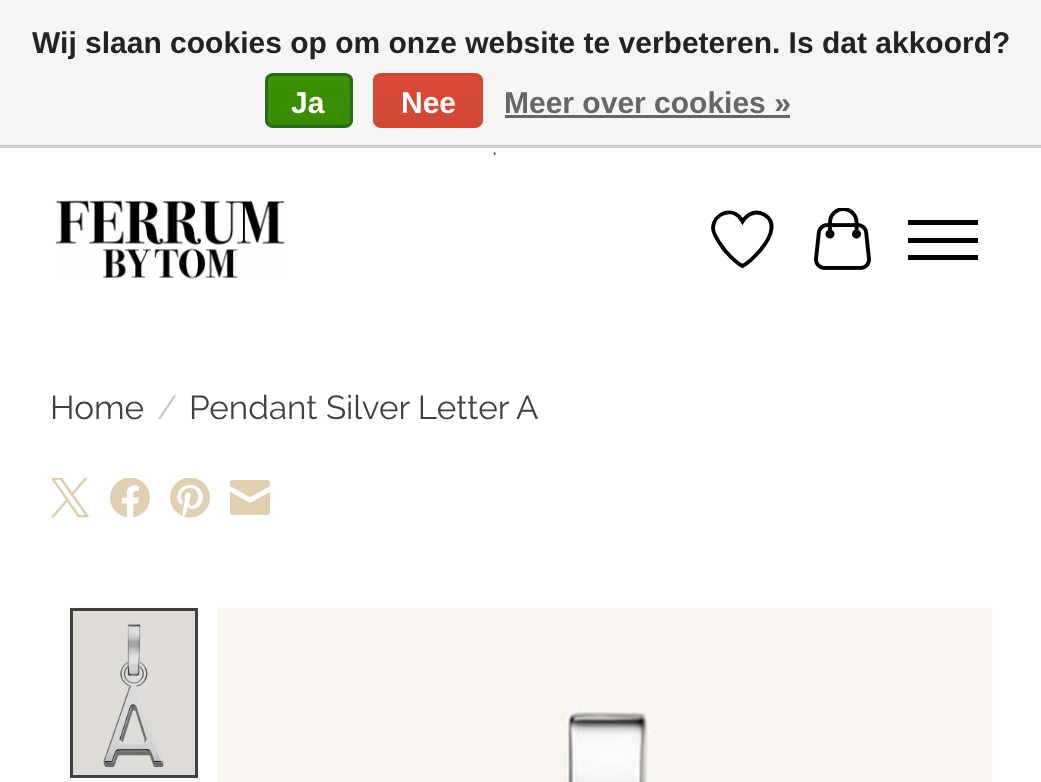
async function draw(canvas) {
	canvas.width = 1041;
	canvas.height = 782;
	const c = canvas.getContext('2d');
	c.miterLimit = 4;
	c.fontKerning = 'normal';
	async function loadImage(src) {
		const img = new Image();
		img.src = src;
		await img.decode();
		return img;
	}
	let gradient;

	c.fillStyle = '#fff';
	c.fillRect(0, 0, 1041, 782);
	c.fillStyle = '#f5f5f5';
	c.fillRect(0, 0, 1041, 145);
	c.fillStyle = '#ccc';
	c.fillRect(0, 145, 1041, 3);
	c.font = 'bold 30px Liberation Sans';
	c.fillStyle = '#222';
	c.fillText('Wij slaan cookies op om onze website te verbeteren. Is dat akkoord?', 32, 53);
	c.save();
	c.beginPath();
	c.roundRect(265, 73, 88, 55, 8);
	c.clip();
	gradient = c.createLinearGradient(309, 75, 309, 125);
	gradient.addColorStop(0, '#3c9300');
	gradient.addColorStop(1, '#398a00');
	c.fillStyle = gradient;
	c.fillRect(265, 75, 88, 50);
	c.restore();
	c.beginPath();
	c.roundRect(266.5, 74.5, 85, 52, 6.5);
	c.strokeStyle = '#29691d';
	c.lineWidth = 3;
	c.stroke();
	c.fillStyle = '#fff';
	c.fillText('Ja', 291, 113);
	c.save();
	c.beginPath();
	c.roundRect(373, 73, 110, 55, 8);
	c.clip();
	gradient = c.createLinearGradient(428, 75, 428, 125);
	gradient.addColorStop(0, '#dc4a38');
	gradient.addColorStop(1, '#d14836');
	c.fillStyle = gradient;
	c.fillRect(373, 75, 110, 50);
	c.restore();
	c.beginPath();
	c.roundRect(374.5, 74.5, 107, 52, 6.5);
	c.strokeStyle = '#d14836';
	c.stroke();
	c.fillText('Nee', 401, 113);
	c.fillStyle = '#666';
	c.fillText('Meer over cookies »', 504, 113);
	c.fillRect(505, 115, 285, 3);
	c.font = '28px Raleway';
	c.fillStyle = '#5b5959';
	c.fillText('.', 492, 155);
	c.drawImage(await loadImage('img1.png'), 55, 200, 230, 79);
	c.beginPath();
	c.moveTo(741, 219);
	c.lineTo(742.5, 221.5);
	c.bezierCurveTo(744.5, 218.5, 746.5, 216, 749.5, 214.5);
	c.bezierCurveTo(759.5, 209, 772.5, 216.5, 771.5, 228);
	c.bezierCurveTo(771, 236, 765.5, 244, 760.5, 250);
	c.bezierCurveTo(756, 255, 749, 263, 742.5, 266);
	c.bezierCurveTo(736, 263, 729, 255, 724.5, 250);
	c.bezierCurveTo(720.5, 244.5, 712.5, 234.5, 713, 227.5);
	c.bezierCurveTo(714.5, 212.5, 732.5, 207, 741, 219);
	c.closePath();
	c.strokeStyle = '#000';
	c.lineWidth = 3.9;
	c.stroke();
	c.drawImage(await loadImage('img2.png'), 814, 208, 57, 62);
	for (const [x, y, w, h, color] of [
		[908, 238, 70, 5, '#000'],
		[908, 220, 70, 5, '#000'],
		[908, 255, 70, 5, '#000'],
	]) {
		c.fillStyle = color;
		c.fillRect(x, y, w, h);
	}
	c.font = '33.25px Raleway';
	c.fillStyle = '#414141';
	c.fillText('Home', 50, 419);
	c.fillStyle = '#c6c6c6';
	c.fillText('/', 157, 419);
	c.fillStyle = '#414141';
	c.fillText('Pendant Silver Letter A', 189, 419);
	c.drawImage(await loadImage('img3.png'), 50, 478, 40, 40);
	c.drawImage(await loadImage('img4.png'), 110, 478, 40, 40);
	c.drawImage(await loadImage('img5.png'), 170, 478, 40, 40);
	c.drawImage(await loadImage('img6.png'), 230, 480, 40, 35);
	c.drawImage(await loadImage('img7.png'), 70, 607, 128, 168);
	c.strokeStyle = '#414141';
	c.lineWidth = 3;
	c.strokeRect(71.5, 609.5, 125, 167);
	c.drawImage(await loadImage('img8.png'), 217, 607, 776, 175);
}

draw(document.querySelector('canvas'));
